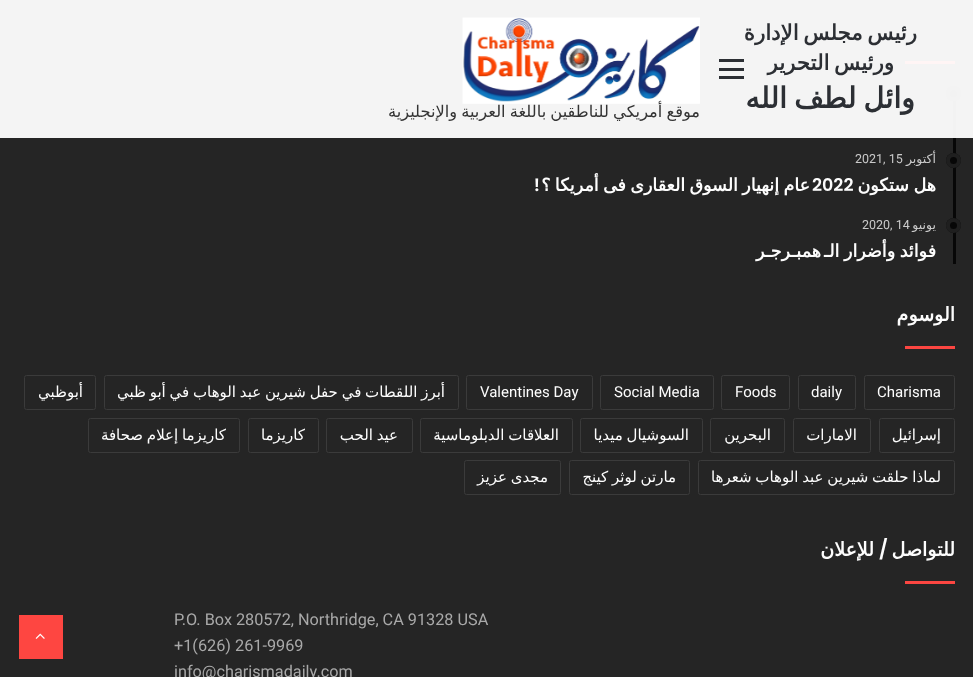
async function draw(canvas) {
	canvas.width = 973;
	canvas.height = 677;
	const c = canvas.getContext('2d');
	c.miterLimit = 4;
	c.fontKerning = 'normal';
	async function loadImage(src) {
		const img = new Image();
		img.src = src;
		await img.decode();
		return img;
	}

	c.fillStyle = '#252525';
	c.fillRect(0, 0, 973, 677);
	c.fillStyle = '#fc4641';
	c.fillRect(905, 61, 50, 3);
	c.fillStyle = '#070707';
	c.fillRect(953, 86, 3, 178);
	c.beginPath();
	c.arc(953.5, 93.5, 7.5, 0, 2 * Math.PI);
	c.fill();
	c.beginPath();
	c.arc(953.5, 93.5, 5.5, 0, 2 * Math.PI);
	c.strokeStyle = '#252525cc';
	c.lineWidth = 4;
	c.stroke();
	c.fillStyle = '#fffffff2';
	c.fillRect(0, 0, 973, 138);
	c.wordSpacing = '-2px';
	c.direction = 'rtl';
	c.font = 'bold 21.25px DejaVu Sans';
	c.fillStyle = '#2c2f34';
	c.fillText('رئيس مجلس الإدارة', 917, 40);
	c.fillText('ورئيس التحرير', 894, 70);
	c.font = 'bold 28.75px DejaVu Sans';
	c.fillText('وائل لطف الله', 915, 108);
	for (const [x, y, w, h, color] of [
		[719, 68, 25, 3, '#2c2f34'],
		[719, 59, 25, 3, '#2c2f34'],
		[719, 76, 25, 3, '#2c2f34'],
	]) {
		c.fillStyle = color;
		c.fillRect(x, y, w, h);
	}
	c.drawImage(await loadImage('img1.png'), 462, 17, 238, 87);
	c.wordSpacing = '-1px';
	c.font = '16.25px DejaVu Sans';
	c.fillStyle = '#333';
	c.fillText('موقع أمريكي للناطقين باللغة العربية والإنجليزية', 700, 117);
	c.fillStyle = '#070707';
	c.beginPath();
	c.arc(953.5, 160.5, 7.5, 0, 2 * Math.PI);
	c.fill();
	c.beginPath();
	c.arc(953.5, 160.5, 5.5, 0, 2 * Math.PI);
	c.stroke();
	c.wordSpacing = '0px';
	c.font = '12.5px DejaVu Sans';
	c.fillStyle = '#cacaca';
	c.fillText('أكتوبر', 936, 163);
	c.direction = 'ltr';
	c.font = '12.5px Roboto';
	c.fillText('2021, 15', 855, 163);
	c.wordSpacing = '-1px';
	c.direction = 'rtl';
	c.font = 'bold 17.5px DejaVu Sans';
	c.fillStyle = '#fdfdfd';
	c.fillText('هل ستكون', 936, 191);
	c.wordSpacing = '-1.25px';
	c.fillText('عام إنهيار السوق العقارى فى أمريكا ؟', 810, 191);
	c.wordSpacing = '0px';
	c.direction = 'ltr';
	c.font = '600 17.5px Poppins';
	c.fillText('2022', 812, 191);
	c.direction = 'rtl';
	c.fillText('!', 540, 191);
	c.fillStyle = '#070707';
	c.beginPath();
	c.arc(953.5, 225.5, 7.5, 0, 2 * Math.PI);
	c.fill();
	c.beginPath();
	c.arc(953.5, 225.5, 5.5, 0, 2 * Math.PI);
	c.stroke();
	c.font = '12.5px DejaVu Sans';
	c.fillStyle = '#cacaca';
	c.fillText('يونيو', 936, 229);
	c.direction = 'ltr';
	c.font = '12.5px Roboto';
	c.fillText('2020, 14', 862, 229);
	c.wordSpacing = '-1px';
	c.direction = 'rtl';
	c.font = 'bold 17.5px DejaVu Sans';
	c.fillStyle = '#fdfdfd';
	c.fillText('فوائد وأضرار الـ', 936, 257);
	c.wordSpacing = '0px';
	c.fillText('همبـرجـر', 821, 257);
	c.font = 'bold 19px DejaVu Sans';
	c.fillText('الوسوم', 955, 321);
	c.fillStyle = '#fc4641';
	c.fillRect(905, 346, 50, 3);
	c.beginPath();
	c.roundRect(864.5, 375.5, 90, 34, 2);
	c.strokeStyle = '#3b3b3b';
	c.lineWidth = 1;
	c.stroke();
	c.direction = 'ltr';
	c.font = '15px Roboto';
	c.fillStyle = '#fdfdfd';
	c.fillText('Charisma', 877, 397);
	c.beginPath();
	c.roundRect(798.5, 375.5, 57, 34, 2);
	c.stroke();
	c.fillText('daily', 811, 397);
	c.beginPath();
	c.roundRect(721.5, 375.5, 68, 34, 2);
	c.stroke();
	c.fillText('Foods', 735, 397);
	c.beginPath();
	c.roundRect(600.5, 375.5, 113, 34, 2);
	c.stroke();
	c.fillText('Social Media', 614, 397);
	c.beginPath();
	c.roundRect(466.5, 375.5, 126, 34, 2);
	c.stroke();
	c.fillText('Valentines Day', 480, 397);
	c.beginPath();
	c.roundRect(104.5, 375.5, 354, 34, 2);
	c.stroke();
	c.wordSpacing = '-1px';
	c.direction = 'rtl';
	c.font = '15px DejaVu Sans';
	c.fillText('أبرز اللقطات في حفل شيرين عبد الوهاب في أبو ظبي', 445, 397);
	c.beginPath();
	c.roundRect(24.5, 375.5, 71, 34, 2);
	c.stroke();
	c.wordSpacing = '0px';
	c.fillText('أبوظبي', 83, 397);
	c.beginPath();
	c.roundRect(879.5, 418.5, 75, 34, 2);
	c.stroke();
	c.fillText('إسرائيل', 941, 440);
	c.beginPath();
	c.roundRect(793.5, 418.5, 77, 34, 2);
	c.stroke();
	c.fillText('الامارات', 857, 440);
	c.beginPath();
	c.roundRect(710.5, 418.5, 74, 34, 2);
	c.stroke();
	c.fillText('البحرين', 771, 440);
	c.beginPath();
	c.roundRect(580.5, 418.5, 122, 34, 2);
	c.stroke();
	c.wordSpacing = '-1px';
	c.fillText('السوشيال ميديا', 689, 440);
	c.beginPath();
	c.roundRect(420.5, 418.5, 152, 34, 2);
	c.stroke();
	c.fillText('العلاقات الدبلوماسية', 559, 440);
	c.beginPath();
	c.roundRect(326.5, 418.5, 86, 34, 2);
	c.stroke();
	c.fillText('عيد الحب', 398, 440);
	c.beginPath();
	c.roundRect(248.5, 418.5, 70, 34, 2);
	c.stroke();
	c.wordSpacing = '0px';
	c.fillText('كاريزما', 305, 440);
	c.beginPath();
	c.roundRect(88.5, 418.5, 151, 34, 2);
	c.stroke();
	c.wordSpacing = '-1px';
	c.fillText('كاريزما إعلام صحافة', 226, 440);
	c.beginPath();
	c.roundRect(698.5, 460.5, 256, 34, 2);
	c.stroke();
	c.fillText('لماذا حلقت شيرين عبد الوهاب شعرها', 941, 482);
	c.beginPath();
	c.roundRect(569.5, 460.5, 120, 34, 2);
	c.stroke();
	c.fillText('مارتن لوثر كينج', 676, 482);
	c.beginPath();
	c.roundRect(464.5, 460.5, 96, 34, 2);
	c.stroke();
	c.fillText('مجدى عزيز', 548, 482);
	c.wordSpacing = '0px';
	c.font = 'bold 19px DejaVu Sans';
	c.fillText('للتواصل', 955, 556);
	c.font = '600 19px Poppins';
	c.fillText('/', 888, 556);
	c.font = 'bold 19px DejaVu Sans';
	c.fillText('للإعلان', 874, 556);
	c.fillStyle = '#fc4641';
	c.fillRect(905, 581, 50, 3);
	c.direction = 'ltr';
	c.font = '16.25px Roboto';
	c.fillStyle = '#a9a9a9';
	for (const [text, x, y] of [
		['P.O. Box 280572, Northridge, CA 91328 USA', 174, 625],
		['+1(626) 261-9969', 174, 651],
		['info@charismadaily.com', 174, 677],
	]) {
		c.fillText(text, x, y);
	}
	c.fillStyle = '#fe4641';
	c.fillRect(19, 615, 44, 44);
	c.drawImage(await loadImage('img2.png'), 35, 633, 10, 6);
}

draw(document.querySelector('canvas'));
